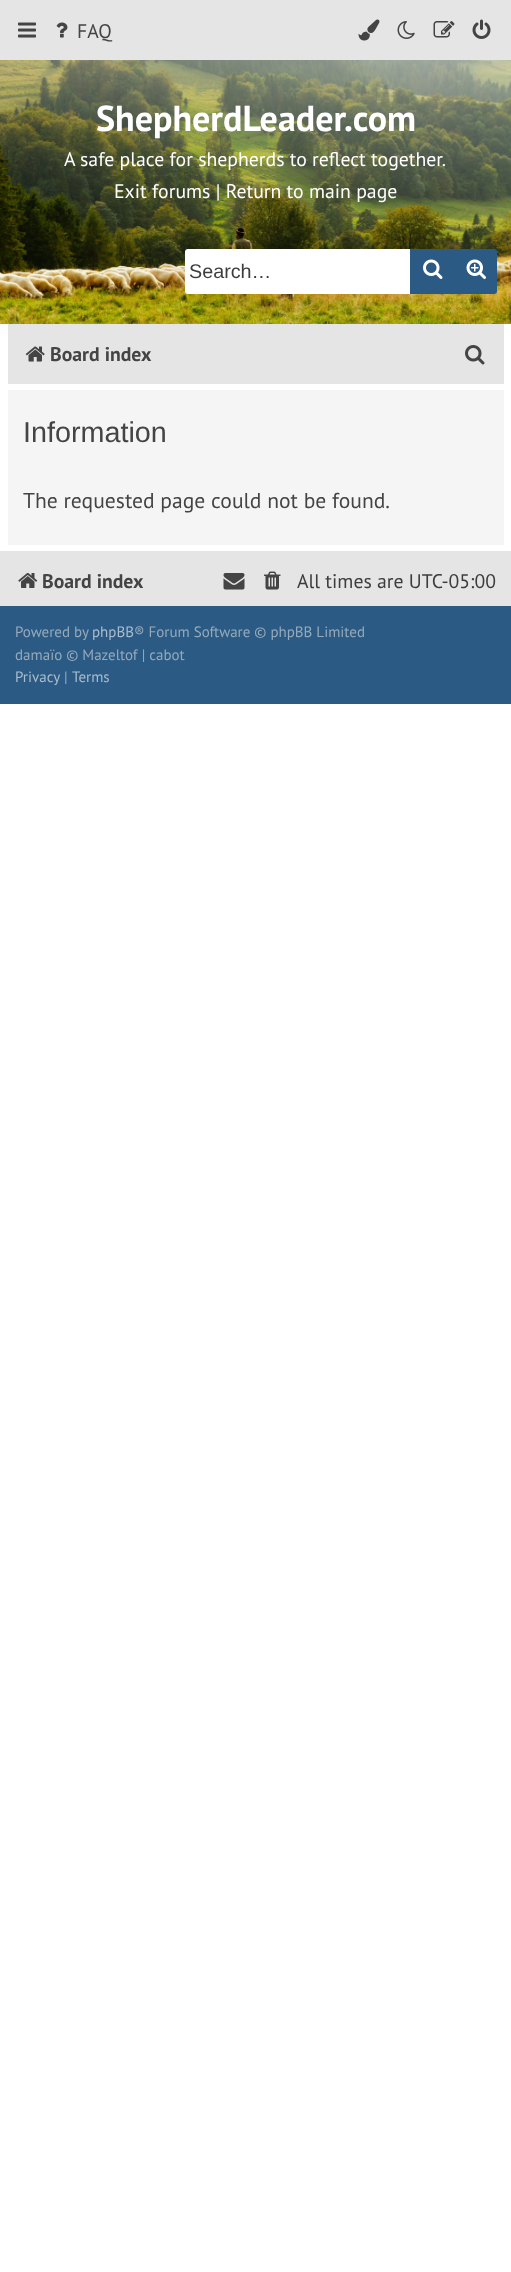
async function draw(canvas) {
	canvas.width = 511;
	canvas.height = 2272;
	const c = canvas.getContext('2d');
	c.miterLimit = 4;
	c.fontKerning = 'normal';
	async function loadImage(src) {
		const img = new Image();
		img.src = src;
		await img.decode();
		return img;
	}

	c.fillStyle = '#fff';
	c.fillRect(0, 0, 511, 2272);
	c.fillStyle = '#e5e5e5';
	c.fillRect(0, 0, 511, 60);
	c.drawImage(await loadImage('img1.png'), 18, 22, 18, 16);
	c.drawImage(await loadImage('img2.png'), 56, 22, 12, 16);
	c.font = '19.75px PT Sans';
	c.fillStyle = '#444';
	c.fillText('FAQ', 77, 38);
	c.drawImage(await loadImage('img3.png'), 358, 19, 22, 22);
	c.drawImage(await loadImage('img4.png'), 397, 21, 18, 18);
	c.drawImage(await loadImage('img5.png'), 433, 21, 22, 17);
	c.drawImage(await loadImage('img6.png'), 472, 19, 19, 20);
	c.drawImage(await loadImage('img7.png'), 0, 60, 511, 264);
	c.font = 'bold 36px PT Sans';
	c.fillStyle = '#fff';
	c.fillText('ShepherdLeader.com', 96, 131);
	c.font = '19.75px PT Sans';
	c.fillText('A safe place for shepherds to reflect together.', 64, 166);
	c.fillText('Exit forums | Return to main page', 114, 198);
	c.beginPath();
	c.roundRect(185, 249, 225, 45, [3, 0, 0, 3]);
	c.fill();
	c.font = '19.75px Liberation Sans';
	c.fillStyle = '#3d3d3d';
	c.fillText('Search…', 189, 278);
	c.fillStyle = '#2b5b84';
	c.fillRect(410, 249, 45, 45);
	c.drawImage(await loadImage('img8.png'), 423, 259, 20, 20);
	c.beginPath();
	c.roundRect(455, 249, 42, 45, [0, 3, 3, 0]);
	c.fill();
	c.drawImage(await loadImage('img9.png'), 466, 259, 20, 20);
	c.fillStyle = '#e5e5e5';
	c.fillRect(8, 324, 496, 60);
	c.drawImage(await loadImage('img10.png'), 25, 346, 20, 16);
	c.font = 'bold 19.75px PT Sans';
	c.fillStyle = '#444';
	c.fillText('Board index', 50, 361);
	c.drawImage(await loadImage('img11.png'), 465, 345, 20, 20);
	c.fillStyle = '#f5f5f5';
	c.fillRect(8, 390, 496, 155);
	c.font = '28.75px Liberation Sans';
	c.fillStyle = '#444';
	c.fillText('Information', 23, 442);
	c.font = '21.6px PT Sans';
	c.fillText('The requested page could not be found.', 23, 508);
	c.fillStyle = '#e5e5e5';
	c.fillRect(0, 551, 511, 55);
	c.drawImage(await loadImage('img12.png'), 18, 573, 20, 15);
	c.font = 'bold 19.75px PT Sans';
	c.fillStyle = '#444';
	c.fillText('Board index', 42, 588);
	c.drawImage(await loadImage('img13.png'), 223, 573, 22, 17);
	c.drawImage(await loadImage('img14.png'), 264, 571, 17, 19);
	c.font = '19.75px PT Sans';
	c.fillStyle = '#3d3d3d';
	c.fillText('All times are UTC-05:00', 297, 588);
	c.fillStyle = '#2b5b84';
	c.fillRect(0, 606, 511, 98);
	c.font = '15px PT Sans';
	c.fillStyle = '#96aaba';
	c.fillText('Powered by', 15, 637);
	c.fillStyle = '#aabdce';
	c.fillText('phpBB', 92, 637);
	c.fillStyle = '#96aaba';
	c.fillText('® Forum Software © phpBB Limited', 134, 637);
	c.fillText('damaïo © Mazeltof | cabot', 15, 660);
	c.fillStyle = '#aabdce';
	c.fillText('Privacy', 15, 682);
	c.fillStyle = '#96aaba';
	c.fillText('|', 64, 682);
	c.fillStyle = '#aabdce';
	c.fillText('Terms', 72, 682);
}

draw(document.querySelector('canvas'));
